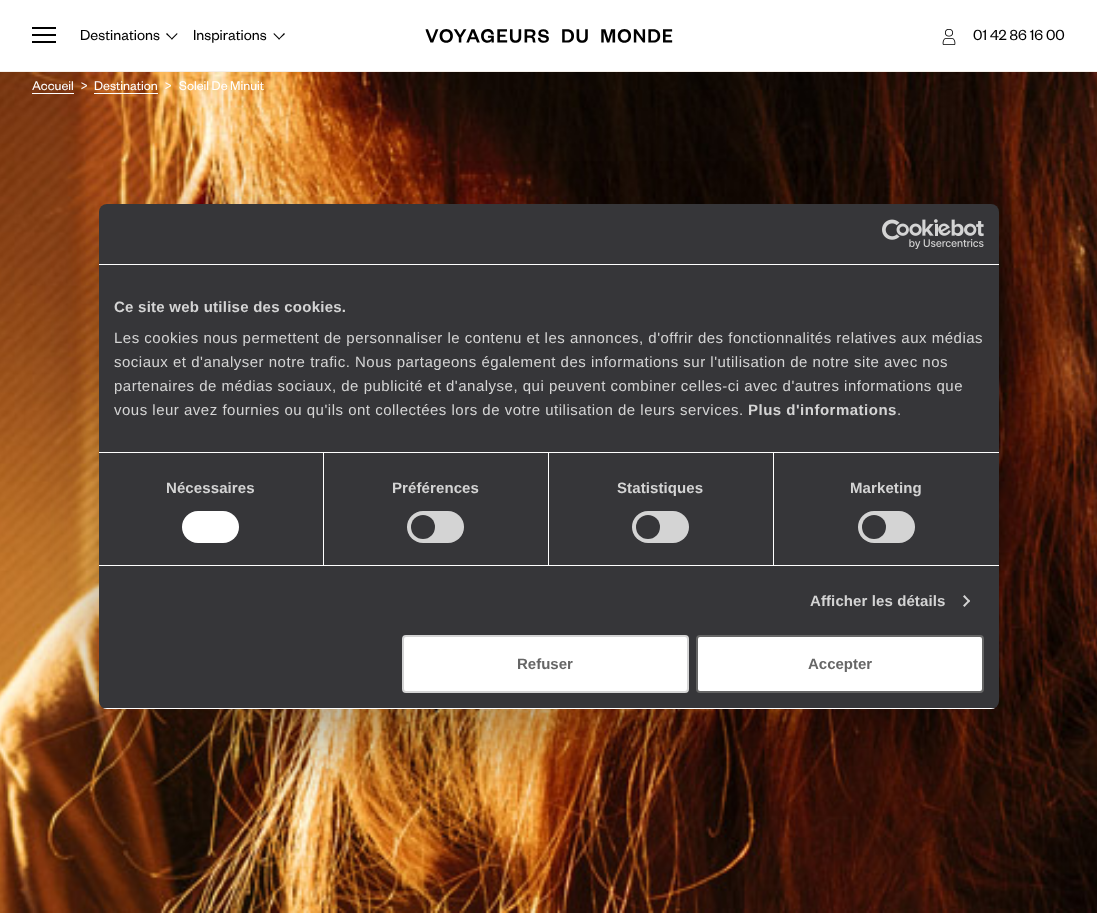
async function draw(canvas) {
	canvas.width = 1097;
	canvas.height = 913;
	const c = canvas.getContext('2d');
	c.miterLimit = 4;
	c.fontKerning = 'normal';
	async function loadImage(src) {
		const img = new Image();
		img.src = src;
		await img.decode();
		return img;
	}

	c.fillStyle = '#fff';
	c.fillRect(0, 0, 1097, 913);
	for (const [x, y, w, h, color] of [
		[0, 71, 1097, 1, '#f5f0ea'],
		[32, 27, 24, 2, '#000'],
		[32, 34, 24, 2, '#000'],
		[32, 41, 24, 2, '#000'],
	]) {
		c.fillStyle = color;
		c.fillRect(x, y, w, h);
	}
	c.font = '16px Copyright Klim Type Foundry';
	c.fillText('Destinations', 80, 40);
	c.beginPath();
	c.moveTo(177, 33);
	c.lineTo(177.5, 34);
	c.lineTo(172, 39.5);
	c.lineTo(171, 39);
	c.closePath();
	c.fill();
	c.beginPath();
	c.moveTo(167, 33);
	c.lineTo(172.5, 39);
	c.lineTo(172, 39.5);
	c.lineTo(166, 34);
	c.closePath();
	c.fill();
	c.fillText('Inspirations', 193, 40);
	c.beginPath();
	c.moveTo(284, 33);
	c.lineTo(285, 34);
	c.lineTo(279, 39.5);
	c.lineTo(278.5, 39);
	c.closePath();
	c.fill();
	c.beginPath();
	c.moveTo(274, 33);
	c.lineTo(280, 39);
	c.lineTo(279, 39.5);
	c.lineTo(273.5, 34);
	c.closePath();
	c.fill();
	c.drawImage(await loadImage('img1.png'), 942, 29, 14, 16);
	c.fillText('01 42 86 16 00', 973, 40);
	c.drawImage(await loadImage('img2.png'), 425, 29, 248, 14);
	c.drawImage(await loadImage('img3.png'), 0, 72, 1097, 841);
	c.font = '14px Copyright Klim Type Foundry';
	c.fillStyle = '#fff';
	c.fillText('Accueil', 32, 90);
	c.fillRect(32, 93, 42, 1);
	c.fillText('>', 81, 90);
	c.fillText('Destination', 94, 90);
	c.fillRect(94, 93, 64, 1);
	c.fillText('>', 165, 90);
	c.fillText('Soleil De Minuit', 179, 90);
	c.fillStyle = '#0000004d';
	c.filter = 'blur(34px)';
	c.beginPath();
	c.roundRect(99, 236, 900, 505, 8);
	c.fill();
	c.filter = 'none';
	c.fillStyle = '#363639';
	c.beginPath();
	c.roundRect(99, 204, 900, 505, 8);
	c.fill();
	c.fillStyle = '#fff';
	c.fillRect(99, 264, 900, 1);
	c.drawImage(await loadImage('img4.png'), 882, 219, 102, 30);
	c.fillRect(99, 452, 900, 1);
	c.letterSpacing = '0.25px';
	c.font = 'bold 15px Liberation Sans';
	c.fillStyle = '#d4d4d4';
	c.fillText('Ce site web utilise des cookies.', 114, 312);
	c.letterSpacing = '0.5px';
	c.font = '15px Liberation Sans';
	for (const [text, x, y] of [
		['Les cookies nous permettent de personnaliser le contenu et les annonces, d\'offrir des fonctionnalités relatives aux médias', 114, 343],
		['sociaux et d\'analyser notre trafic. Nous partageons également des informations sur l\'utilisation de notre site avec nos', 114, 367],
		['partenaires de médias sociaux, de publicité et d\'analyse, qui peuvent combiner celles-ci avec d\'autres informations que', 114, 391],
		['vous leur avez fournies ou qu\'ils ont collectées lors de votre utilisation de leurs services.', 114, 415],
	]) {
		c.fillText(text, x, y);
	}
	c.font = 'bold 15px Liberation Sans';
	c.fillText('Plus d\'informations', 748, 415);
	c.font = '15px Liberation Sans';
	c.fillText('.', 897, 415);
	c.fillStyle = '#fff';
	c.fillRect(99, 565, 900, 1);
	c.fillRect(323, 453, 1, 112);
	c.letterSpacing = '0.1px';
	c.font = 'bold 15px Liberation Sans';
	c.fillStyle = '#d4d4d4';
	c.fillText('Nécessaires', 166, 493);
	c.fillStyle = '#fff';
	c.beginPath();
	c.roundRect(182, 511, 57, 32, 16);
	c.fill();
	c.fillRect(548, 453, 1, 112);
	c.fillStyle = '#d4d4d4';
	c.fillText('Préférences', 392, 493);
	c.beginPath();
	c.roundRect(407, 511, 57, 32, 16);
	c.fill();
	c.fillStyle = '#363639';
	c.beginPath();
	c.arc(423, 527, 12, 0, 2 * Math.PI);
	c.fill();
	c.fillStyle = '#fff';
	c.fillRect(773, 453, 1, 112);
	c.fillStyle = '#d4d4d4';
	c.fillText('Statistiques', 617, 493);
	c.beginPath();
	c.roundRect(632, 511, 57, 32, 16);
	c.fill();
	c.fillStyle = '#363639';
	c.beginPath();
	c.arc(648, 527, 12, 0, 2 * Math.PI);
	c.fill();
	c.fillStyle = '#d4d4d4';
	c.fillText('Marketing', 850, 493);
	c.beginPath();
	c.roundRect(858, 511, 57, 32, 16);
	c.fill();
	c.fillStyle = '#363639';
	c.beginPath();
	c.arc(874, 527, 12, 0, 2 * Math.PI);
	c.fill();
	c.fillStyle = '#d4d4d4';
	c.fillText('Afficher les détails', 810, 606);
	c.beginPath();
	c.moveTo(964.5, 595);
	c.lineTo(970, 601);
	c.lineTo(969, 602.5);
	c.lineTo(963, 596.5);
	c.closePath();
	c.fill();
	c.beginPath();
	c.moveTo(969, 599.5);
	c.lineTo(970, 601);
	c.lineTo(964.5, 607);
	c.lineTo(963, 605.5);
	c.closePath();
	c.fill();
	c.save();
	c.beginPath();
	c.roundRect(99, 204, 900, 505, 8);
	c.clip();
	c.fillStyle = '#fff';
	c.fillRect(99, 708, 900, 1);
	c.restore();
	c.fillStyle = '#fff';
	c.beginPath();
	c.roundRect(403, 636, 285, 56, 3);
	c.fill();
	c.strokeStyle = '#d4d4d4';
	c.lineWidth = 2;
	c.stroke();
	c.letterSpacing = '0px';
	c.fillStyle = '#666';
	c.fillText('Refuser', 517, 669);
	c.fillStyle = '#fff';
	c.beginPath();
	c.roundRect(697, 636, 286, 56, 3);
	c.fill();
	c.strokeStyle = '#666';
	c.stroke();
	c.fillStyle = '#666';
	c.fillText('Accepter', 808, 669);
}

draw(document.querySelector('canvas'));
